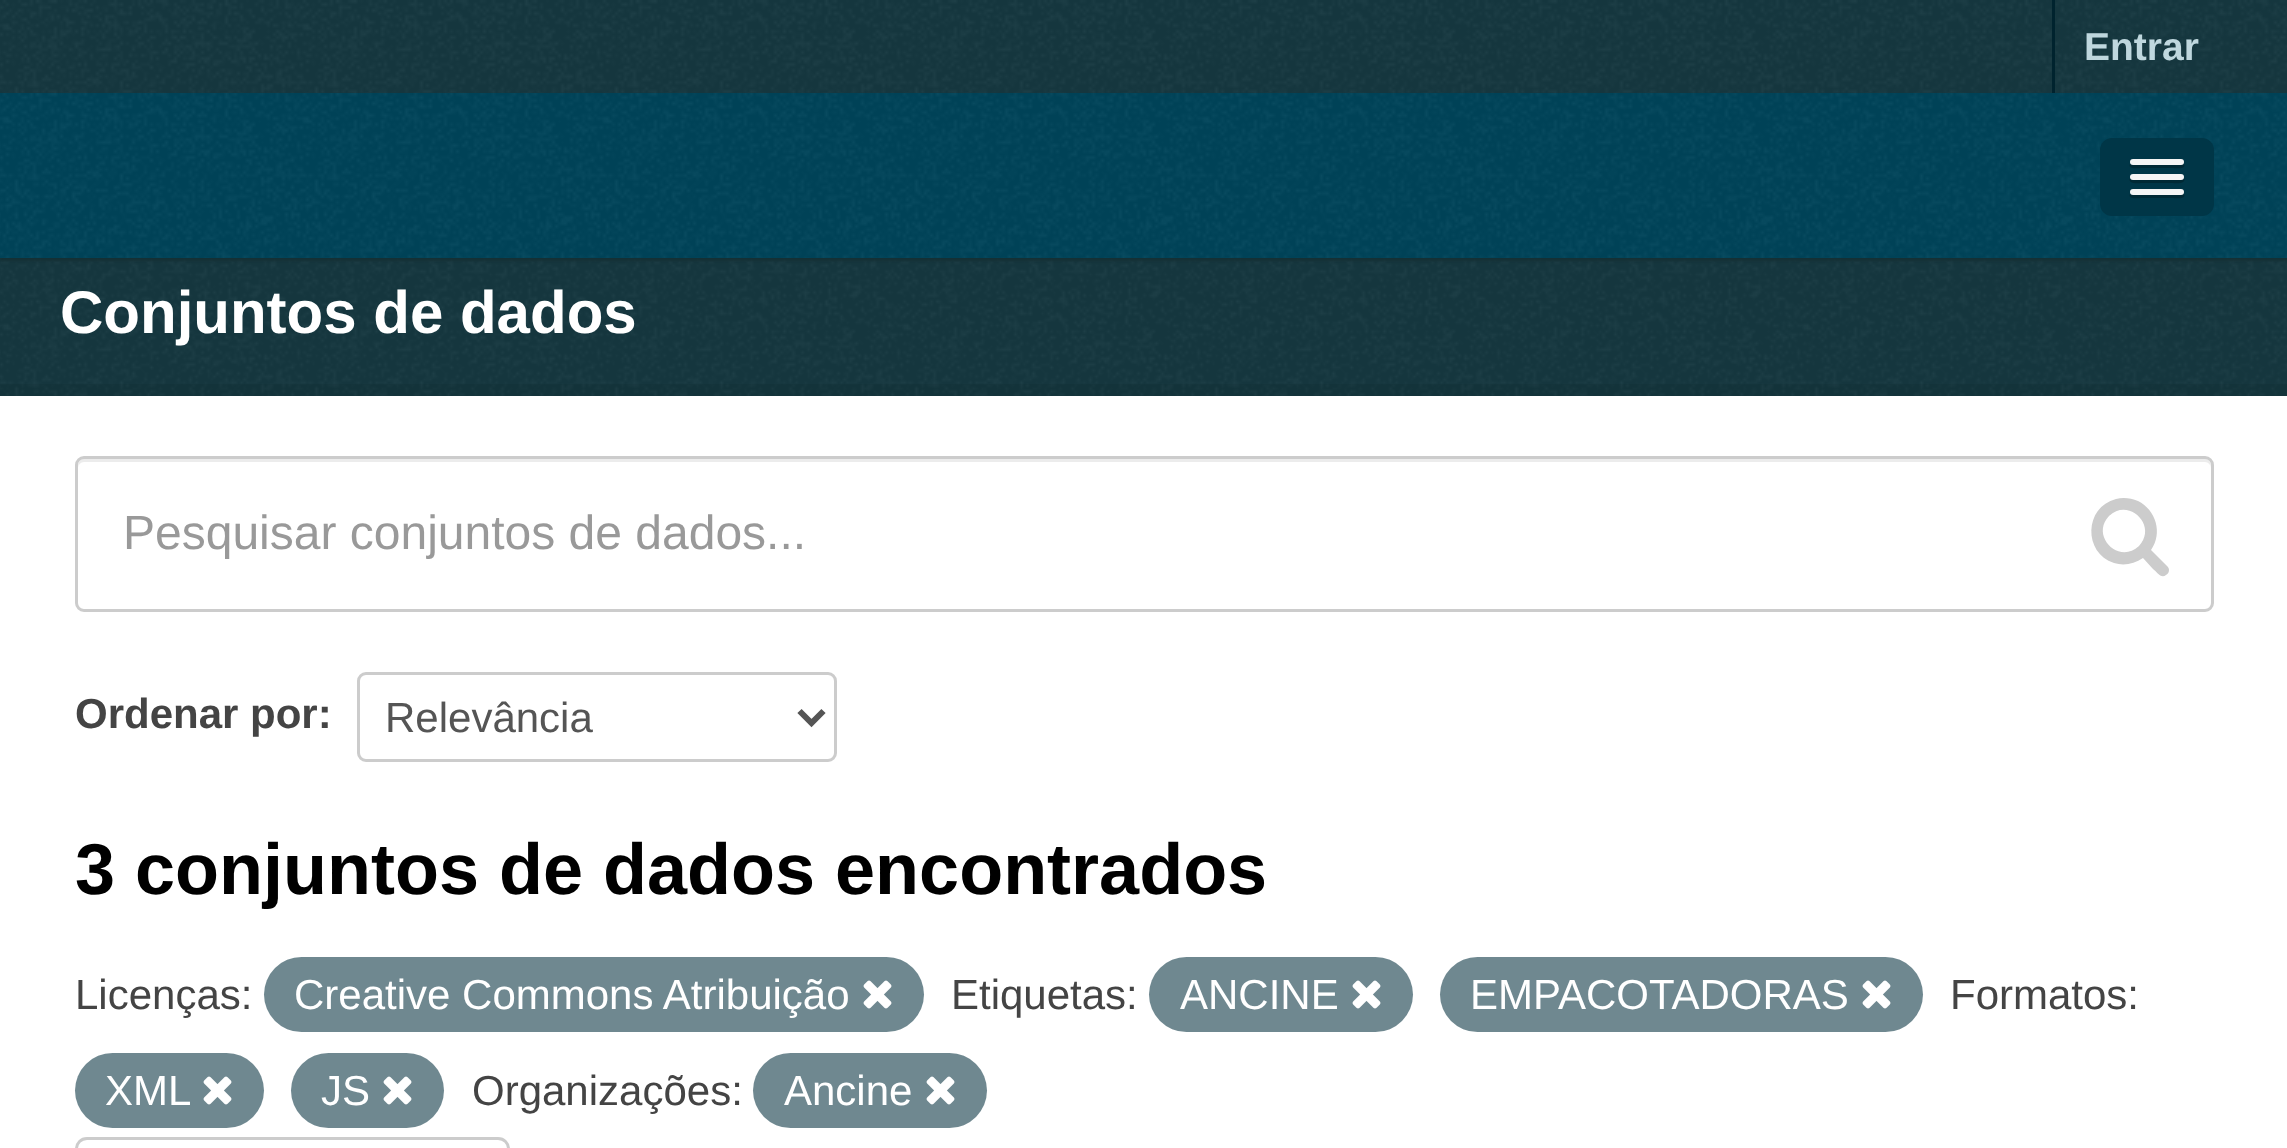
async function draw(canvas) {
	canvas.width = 2287;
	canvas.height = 1148;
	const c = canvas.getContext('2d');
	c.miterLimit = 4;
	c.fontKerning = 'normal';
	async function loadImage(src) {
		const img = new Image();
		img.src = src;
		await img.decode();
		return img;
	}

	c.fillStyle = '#163840';
	c.fillRect(0, 0, 2287, 1148);
	c.drawImage(await loadImage('img1.png'), 0, 258, 2287, 138);
	c.drawImage(await loadImage('img2.png'), 0, 0, 2287, 93);
	c.fillStyle = '#00232e';
	c.fillRect(2052, 0, 3, 93);
	c.font = 'bold 39px Liberation Sans';
	c.fillStyle = '#bfd7de';
	c.fillText('Entrar', 2084, 60);
	c.fillStyle = '#153035';
	c.filter = 'blur(1.5px)';
	c.beginPath();
	c.rect(0, 96, 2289, 165);
	c.fill();
	c.filter = 'none';
	c.fillStyle = '#00455a';
	c.fillRect(0, 93, 2287, 165);
	c.drawImage(await loadImage('img3.png'), 0, 93, 2287, 165);
	c.fillStyle = '#003647';
	c.beginPath();
	c.roundRect(2100, 138, 114, 78, 12);
	c.fill();
	c.fillStyle = '#002935';
	c.beginPath();
	c.moveTo(2130, 164);
	c.bezierCurveTo(2127, 170, 2141, 168, 2141, 168);
	c.lineTo(2173, 168);
	c.bezierCurveTo(2173, 168, 2187, 170, 2184, 164);
	c.bezierCurveTo(2183, 164, 2182, 165, 2181, 165);
	c.lineTo(2133, 165);
	c.bezierCurveTo(2132, 165, 2131, 164, 2130, 164);
	c.closePath();
	c.fill();
	c.fillStyle = '#f5f5f5';
	c.beginPath();
	c.roundRect(2130, 159, 54, 6, 3);
	c.fill();
	c.fillStyle = '#002935';
	c.beginPath();
	c.moveTo(2130, 178);
	c.bezierCurveTo(2127, 185, 2141, 183, 2141, 183);
	c.lineTo(2173, 183);
	c.bezierCurveTo(2173, 183, 2187, 185, 2184, 178);
	c.bezierCurveTo(2183, 179, 2182, 180, 2181, 180);
	c.lineTo(2133, 180);
	c.bezierCurveTo(2132, 180, 2131, 179, 2130, 178);
	c.closePath();
	c.fill();
	c.fillStyle = '#f5f5f5';
	c.beginPath();
	c.roundRect(2130, 174, 54, 6, 3);
	c.fill();
	c.fillStyle = '#002935';
	c.beginPath();
	c.moveTo(2130, 194);
	c.bezierCurveTo(2127, 200, 2141, 198, 2141, 198);
	c.lineTo(2173, 198);
	c.bezierCurveTo(2173, 198, 2187, 200, 2184, 194);
	c.bezierCurveTo(2183, 194, 2182, 195, 2181, 195);
	c.lineTo(2133, 195);
	c.bezierCurveTo(2132, 195, 2131, 194, 2130, 194);
	c.closePath();
	c.fill();
	c.fillStyle = '#f5f5f5';
	c.beginPath();
	c.roundRect(2130, 189, 54, 6, 3);
	c.fill();
	c.font = 'bold 60px Liberation Sans';
	c.fillStyle = '#fff';
	c.fillText('Conjuntos de dados', 60, 333);
	c.strokeStyle = '#0000000d';
	c.lineWidth = 12;
	c.strokeRect(-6, 390, 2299, 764);
	c.fillRect(0, 396, 2287, 752);
	c.fillStyle = '#ececec';
	c.beginPath();
	c.moveTo(84, 462);
	c.lineTo(2205, 462);
	c.bezierCurveTo(2208, 462, 2211, 465, 2211, 468);
	c.bezierCurveTo(2211, 464, 2210, 459, 2205, 459);
	c.lineTo(84, 459);
	c.bezierCurveTo(79, 459, 78, 464, 78, 468);
	c.bezierCurveTo(78, 465, 81, 462, 84, 462);
	c.closePath();
	c.fill();
	c.beginPath();
	c.roundRect(76.5, 457.5, 2136, 153, 7.5);
	c.strokeStyle = '#ccc';
	c.lineWidth = 3;
	c.stroke();
	c.font = '48px Liberation Sans';
	c.fillStyle = '#999';
	c.fillText('Pesquisar conjuntos de dados...', 123, 549);
	c.fillStyle = '#ccc';
	c.beginPath();
	c.moveTo(2139, 546);
	c.bezierCurveTo(2158, 526, 2129, 497, 2109, 516);
	c.bezierCurveTo(2090, 536, 2119, 565, 2139, 546);
	c.closePath();
	c.moveTo(2169, 570);
	c.bezierCurveTo(2169, 572, 2168, 574, 2166, 575);
	c.bezierCurveTo(2161, 579, 2157, 572, 2153, 569);
	c.lineTo(2143, 558);
	c.bezierCurveTo(2134, 564, 2124, 566, 2114, 563);
	c.bezierCurveTo(2083, 553, 2084, 507, 2116, 499);
	c.bezierCurveTo(2123, 497, 2131, 498, 2138, 501);
	c.bezierCurveTo(2156, 510, 2163, 533, 2151, 550);
	c.lineTo(2167, 566);
	c.bezierCurveTo(2168, 567, 2169, 568, 2169, 570);
	c.closePath();
	c.fill();
	c.font = 'bold 42px Liberation Sans';
	c.fillStyle = '#444';
	c.fillText('Ordenar por:', 75, 728);
	c.beginPath();
	c.roundRect(358.5, 673.5, 477, 87, 7.5);
	c.stroke();
	c.beginPath();
	c.moveTo(799.5, 711);
	c.lineTo(811.5, 723);
	c.lineTo(823.5, 711);
	c.strokeStyle = '#555';
	c.lineWidth = 6;
	c.stroke();
	c.font = '42px Liberation Sans';
	c.fillStyle = '#555';
	c.fillText('Relevância', 385, 732);
	c.font = 'bold 72px Liberation Sans';
	c.fillStyle = '#000';
	c.fillText('3 conjuntos de dados encontrados', 75, 894);
	c.font = '42px Liberation Sans';
	c.fillStyle = '#444';
	c.fillText('Licenças:', 75, 1009);
	c.fillStyle = '#6f8890';
	c.beginPath();
	c.roundRect(264, 957, 660, 75, 37.5);
	c.fill();
	c.fillStyle = '#fff';
	c.fillText('Creative Commons Atribuição', 294, 1009);
	c.drawImage(await loadImage('img4.png'), 863, 980, 29, 29);
	c.fillStyle = '#444';
	c.fillText('Etiquetas:', 951, 1009);
	c.fillStyle = '#6f8890';
	c.beginPath();
	c.roundRect(1149, 957, 264, 75, 37.5);
	c.fill();
	c.fillStyle = '#fff';
	c.fillText('ANCINE', 1180, 1009);
	c.drawImage(await loadImage('img4.png'), 1352, 980, 29, 29);
	c.fillStyle = '#6f8890';
	c.beginPath();
	c.roundRect(1440, 957, 483, 75, 37.5);
	c.fill();
	c.fillStyle = '#fff';
	c.fillText('EMPACOTADORAS', 1470, 1009);
	c.drawImage(await loadImage('img4.png'), 1862, 980, 29, 29);
	c.fillStyle = '#444';
	c.fillText('Formatos:', 1950, 1009);
	c.fillStyle = '#6f8890';
	c.beginPath();
	c.roundRect(75, 1053, 189, 75, 37.5);
	c.fill();
	c.fillStyle = '#fff';
	c.fillText('XML', 105, 1105);
	c.drawImage(await loadImage('img4.png'), 203, 1076, 29, 29);
	c.fillStyle = '#6f8890';
	c.beginPath();
	c.roundRect(291, 1053, 153, 75, 37.5);
	c.fill();
	c.fillStyle = '#fff';
	c.fillText('JS', 321, 1105);
	c.drawImage(await loadImage('img4.png'), 383, 1076, 29, 29);
	c.fillStyle = '#444';
	c.fillText('Organizações:', 472, 1105);
	c.fillStyle = '#6f8890';
	c.beginPath();
	c.roundRect(753, 1053, 234, 75, 37.5);
	c.fill();
	c.fillStyle = '#fff';
	c.fillText('Ancine', 784, 1105);
	c.drawImage(await loadImage('img4.png'), 926, 1076, 29, 29);
	c.beginPath();
	c.moveTo(79.5, 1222.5);
	c.bezierCurveTo(77.5, 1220.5, 76.5, 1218, 76.5, 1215);
	c.lineTo(76.5, 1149);
	c.bezierCurveTo(76.5, 1146, 77.5, 1143.5, 79.5, 1141.5);
	c.bezierCurveTo(81.5, 1139.5, 84, 1138.5, 87, 1138.5);
	c.lineTo(498, 1138.5);
	c.bezierCurveTo(501, 1138.5, 503.5, 1139.5, 505.5, 1141.5);
	c.bezierCurveTo(507.5, 1143.5, 508.5, 1146, 508.5, 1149);
	c.lineTo(508.5, 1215);
	c.bezierCurveTo(508.5, 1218, 507.5, 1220.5, 505.5, 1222.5);
	c.strokeStyle = '#ccc';
	c.lineWidth = 3;
	c.stroke();
}

draw(document.querySelector('canvas'));
